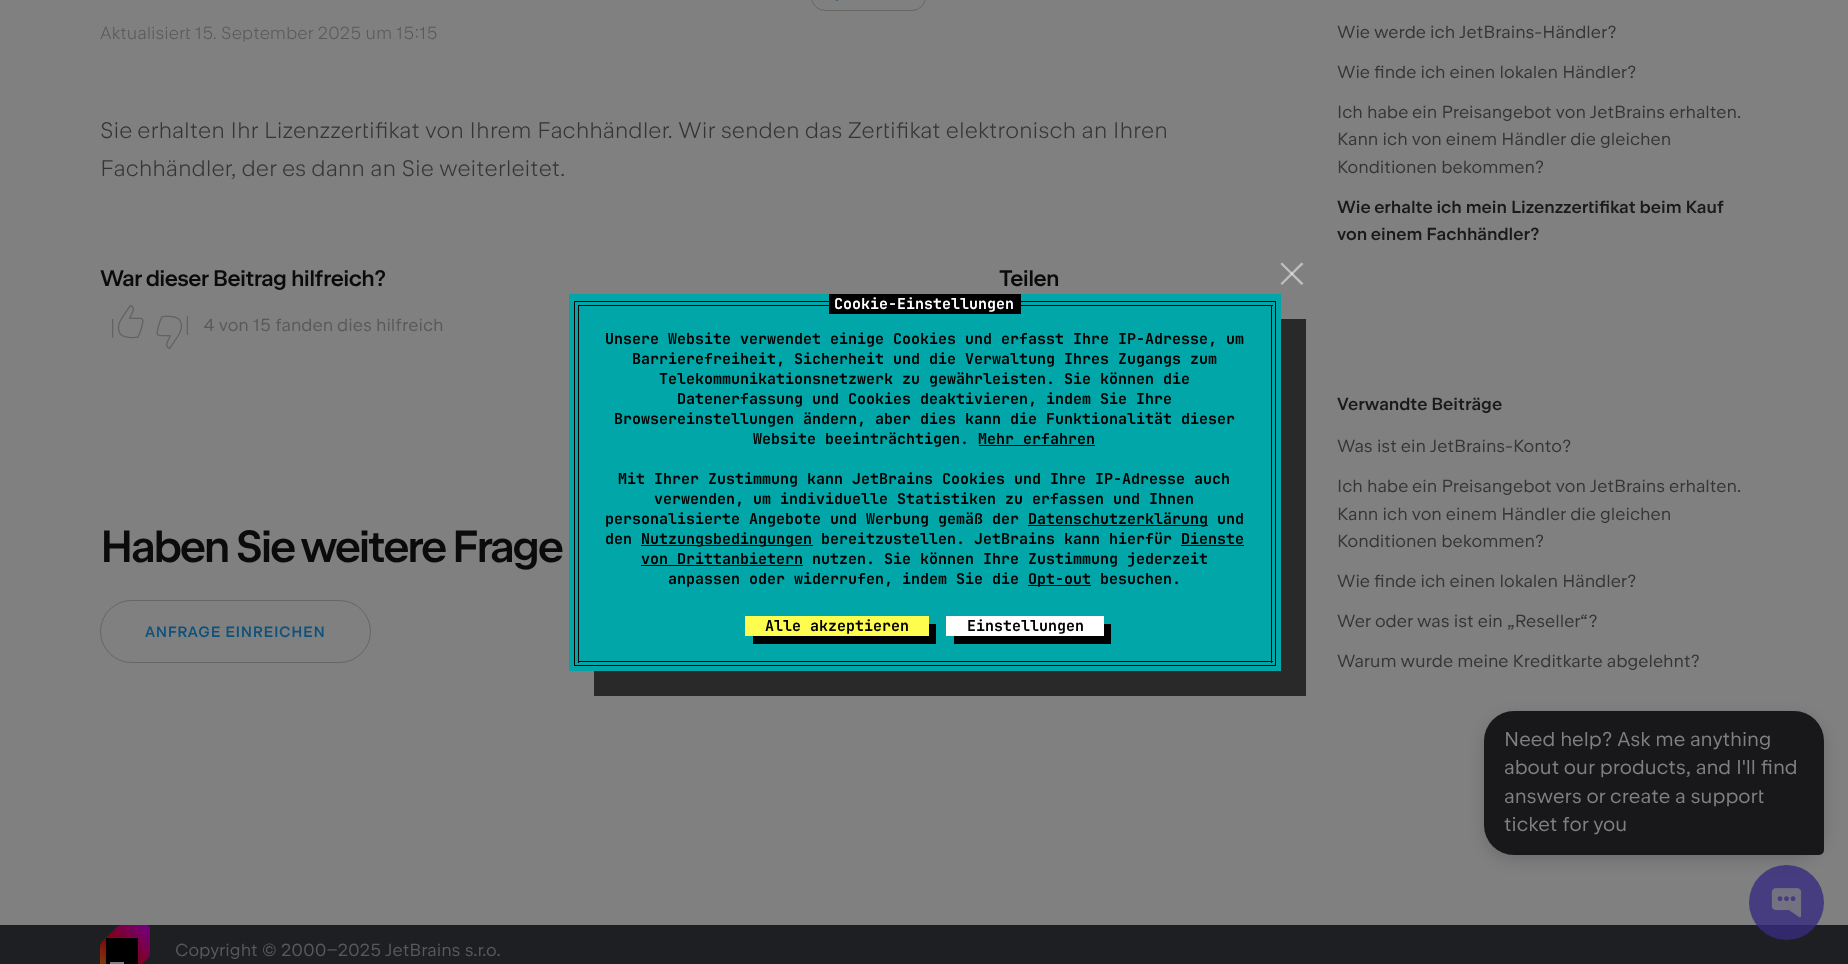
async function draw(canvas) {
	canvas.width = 1848;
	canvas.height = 964;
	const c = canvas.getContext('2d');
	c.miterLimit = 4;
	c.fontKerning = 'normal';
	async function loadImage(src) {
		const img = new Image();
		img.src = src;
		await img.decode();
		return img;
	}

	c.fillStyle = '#808080';
	c.fillRect(0, 0, 1848, 964);
	c.beginPath();
	c.roundRect(811.5, -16.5, 114, 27, 15);
	c.strokeStyle = '#666';
	c.stroke();
	c.drawImage(await loadImage('img1.png'), 836, 0, 2, 1);
	c.font = '300 17.5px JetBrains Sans';
	c.fillStyle = '#58595a';
	c.fillText('Aktualisiert', 100, 39);
	c.fillText('15. September 2025 um 15:15', 195, 39);
	c.font = '300 22.5px JetBrains Sans';
	c.fillStyle = '#353535';
	c.fillText('Sie erhalten Ihr Lizenzzertifikat von Ihrem Fachhändler. Wir senden das Zertifikat elektronisch an Ihren', 100, 138);
	c.fillText('Fachhändler, der es dann an Sie weiterleitet.', 100, 176);
	c.letterSpacing = '-0.6px';
	c.font = '600 22.5px JetBrains Sans';
	c.fillStyle = '#0b0b0b';
	c.fillText('War dieser Beitrag hilfreich?', 100, 286);
	c.drawImage(await loadImage('img2.png'), 112, 304, 32, 35);
	c.drawImage(await loadImage('img3.png'), 156, 315, 32, 35);
	c.letterSpacing = '0px';
	c.font = '17.5px JetBrains Sans';
	c.fillStyle = '#58595a';
	c.fillText('4 von 15 fanden dies hilfreich', 204, 331);
	c.letterSpacing = '-0.6px';
	c.font = '600 22.5px JetBrains Sans';
	c.fillStyle = '#0b0b0b';
	c.fillText('Teilen', 999, 286);
	c.letterSpacing = '-2.5px';
	c.font = '600 45px JetBrains Sans';
	c.fillText('Haben Sie weitere Frage', 100, 562);
	c.beginPath();
	c.roundRect(100.5, 600.5, 270, 62, 31);
	c.stroke();
	c.letterSpacing = '0.6px';
	c.font = '600 15px JetBrains Sans';
	c.fillStyle = '#0c527d';
	c.fillText('ANFRAGE EINREICHEN', 145, 637);
	c.letterSpacing = '0px';
	c.font = '17.5px JetBrains Sans';
	c.fillStyle = '#353535';
	for (const [text, x, y] of [
		['Wie werde ich JetBrains-Händler?', 1337, 38],
		['Wie finde ich einen lokalen Händler?', 1337, 78],
		['Ich habe ein Preisangebot von JetBrains erhalten.', 1337, 118],
		['Kann ich von einem Händler die gleichen', 1337, 145],
		['Konditionen bekommen?', 1337, 173],
	]) {
		c.fillText(text, x, y);
	}
	c.font = '600 17.5px JetBrains Sans';
	c.fillStyle = '#1a1a1a';
	for (const [text, x, y] of [
		['Wie erhalte ich mein Lizenzzertifikat beim Kauf', 1337, 213],
		['von einem Fachhändler?', 1337, 240],
		['Verwandte Beiträge', 1337, 410],
	]) {
		c.fillText(text, x, y);
	}
	c.font = '17.5px JetBrains Sans';
	c.fillStyle = '#353535';
	for (const [text, x, y] of [
		['Was ist ein JetBrains-Konto?', 1337, 452],
		['Ich habe ein Preisangebot von JetBrains erhalten.', 1337, 492],
		['Kann ich von einem Händler die gleichen', 1337, 520],
		['Konditionen bekommen?', 1337, 547],
		['Wie finde ich einen lokalen Händler?', 1337, 587],
		['Wer oder was ist ein „Reseller“?', 1337, 627],
		['Warum wurde meine Kreditkarte abgelehnt?', 1337, 667],
	]) {
		c.fillText(text, x, y);
	}
	c.fillStyle = '#1e1f22';
	c.fillRect(0, 925, 1848, 39);
	c.drawImage(await loadImage('img4.png'), 100, 925, 50, 39);
	c.fillStyle = '#58595a';
	c.fillText('Copyright © 2000–2025 JetBrains s.r.o.', 175, 956);
	c.fillStyle = '#292929';
	c.beginPath();
	c.moveTo(594, 671);
	c.lineTo(594, 696);
	c.lineTo(1306, 696);
	c.lineTo(1306, 319);
	c.lineTo(1281, 319);
	c.lineTo(1281, 671);
	c.closePath();
	c.fill();
	c.fillStyle = '#01a7a8';
	c.fillRect(569, 294, 712, 377);
	c.fillStyle = '#bfbfbf';
	c.beginPath();
	c.moveTo(1280.5, 283.5);
	c.lineTo(1301.5, 262.5);
	c.lineTo(1303.5, 264);
	c.lineTo(1282, 285);
	c.closePath();
	c.fill();
	c.fillStyle = '#ffffff80';
	c.beginPath();
	c.moveTo(1282, 262.5);
	c.lineTo(1303.5, 283.5);
	c.lineTo(1301.5, 285);
	c.lineTo(1280.5, 264);
	c.closePath();
	c.fill();
	for (const [x, y, w, h, color] of [
		[578, 305, 695, 1, '#000'],
		[1271, 305, 1, 358, '#000'],
		[578, 305, 1, 311, '#000'],
		[574, 301, 702, 1, '#000'],
		[829, 294, 192, 20, '#000'],
	]) {
		c.fillStyle = color;
		c.fillRect(x, y, w, h);
	}
	c.font = 'bold 15px JetBrains Mono';
	c.fillStyle = '#fff';
	c.fillText('Cookie-Einstellungen', 834, 309);
	c.fillStyle = '#000';
	c.fillRect(1275, 301, 1, 365);
	c.fillRect(574, 301, 1, 314);
	for (const [text, x, y] of [
		['Unsere Website verwendet einige Cookies und erfasst Ihre IP-Adresse, um', 605, 344],
		['Barrierefreiheit, Sicherheit und die Verwaltung Ihres Zugangs zum', 632, 364],
		['Telekommunikationsnetzwerk zu gewährleisten. Sie können die', 659, 384],
		['Datenerfassung und Cookies deaktivieren, indem Sie Ihre', 677, 404],
		['Browsereinstellungen ändern, aber dies kann die Funktionalität dieser', 614, 424],
		['Website beeinträchtigen. Mehr erfahren', 753, 444],
	]) {
		c.fillText(text, x, y);
	}
	c.fillRect(979, 445, 116, 1);
	for (const [text, x, y] of [
		['Mit Ihrer Zustimmung kann JetBrains Cookies und Ihre IP-Adresse auch', 618, 484],
		['verwenden, um individuelle Statistiken zu erfassen und Ihnen', 654, 504],
		['personalisierte Angebote und Werbung gemäß der', 605, 524],
	]) {
		c.fillText(text, x, y);
	}
	c.fillRect(1028, 525, 180, 1);
	c.fillText('Datenschutzerklärung und', 1028, 524);
	c.fillText('den', 605, 544);
	c.fillRect(641, 545, 172, 1);
	c.fillText('Nutzungsbedingungen bereitzustellen. JetBrains kann hierfür Dienste', 641, 544);
	c.fillRect(641, 565, 162, 1);
	c.fillText('von Drittanbietern nutzen. Sie können Ihre Zustimmung jederzeit', 641, 564);
	c.fillRect(1181, 545, 63, 1);
	c.fillText('anpassen oder widerrufen, indem Sie die', 668, 584);
	c.fillRect(1028, 585, 63, 1);
	c.fillText('Opt-out besuchen.', 1028, 584);
	for (const [x, y, w, h, color] of [
		[578, 661, 695, 1, '#000'],
		[578, 616, 1, 47, '#000'],
		[574, 665, 702, 1, '#000'],
		[574, 615, 1, 51, '#000'],
	]) {
		c.fillStyle = color;
		c.fillRect(x, y, w, h);
	}
	c.beginPath();
	c.moveTo(753, 636);
	c.lineTo(753, 644);
	c.lineTo(936, 644);
	c.lineTo(936, 624);
	c.lineTo(929, 624);
	c.lineTo(929, 636);
	c.closePath();
	c.fill();
	c.fillStyle = '#fefc4f';
	c.fillRect(745, 616, 184, 20);
	c.fillStyle = '#000';
	c.fillText('Alle akzeptieren', 765, 631);
	c.beginPath();
	c.moveTo(954, 636);
	c.lineTo(954, 644);
	c.lineTo(1111, 644);
	c.lineTo(1111, 624);
	c.lineTo(1104, 624);
	c.lineTo(1104, 636);
	c.closePath();
	c.fill();
	c.fillStyle = '#fff';
	c.fillRect(946, 616, 158, 20);
	c.fillStyle = '#000';
	c.fillText('Einstellungen', 967, 631);
	c.fillStyle = '#362c80cc';
	c.beginPath();
	c.arc(1786.5, 902.5, 37.5, 0, 2 * Math.PI);
	c.fill();
	c.fillStyle = '#00000026';
	c.filter = 'blur(7.5px)';
	c.beginPath();
	c.roundRect(1484, 716, 340, 144, 30);
	c.fill();
	c.filter = 'none';
	c.fillStyle = '#18181a';
	c.beginPath();
	c.roundRect(1484, 711, 340, 144, [30, 30, 5, 30]);
	c.fill();
	c.font = '20px JetBrains Sans';
	c.fillStyle = '#808080';
	for (const [text, x, y] of [
		['Need help? Ask me anything', 1504, 746],
		['about our products, and I\'ll find', 1504, 774],
		['answers or create a support', 1504, 803],
		['ticket for you', 1504, 831],
	]) {
		c.fillText(text, x, y);
	}
	c.drawImage(await loadImage('img5.png'), 1771, 888, 31, 30);
}

draw(document.querySelector('canvas'));
